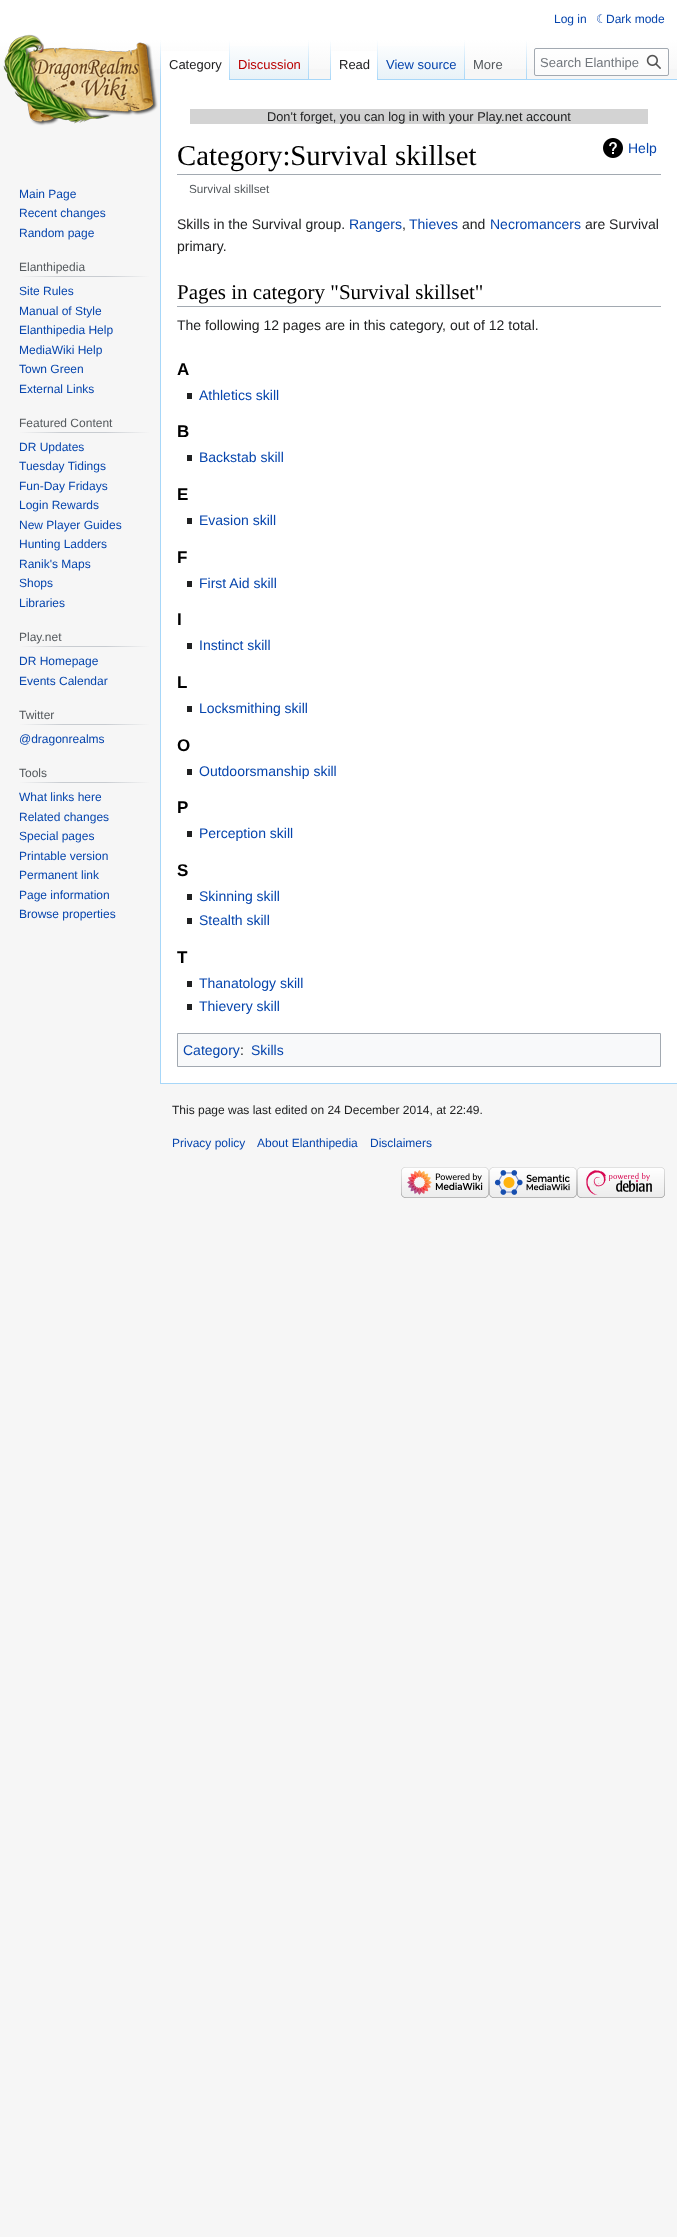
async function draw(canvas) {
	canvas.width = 677;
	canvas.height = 2237;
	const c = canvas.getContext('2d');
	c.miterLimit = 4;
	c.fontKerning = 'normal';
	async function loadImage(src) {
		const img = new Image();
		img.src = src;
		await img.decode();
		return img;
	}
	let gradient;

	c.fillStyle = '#f6f6f6';
	c.fillRect(0, 0, 677, 2237);
	gradient = c.createLinearGradient(339, 0, 339, 80);
	gradient.addColorStop(0.5, '#fff');
	gradient.addColorStop(1, '#f6f6f6');
	c.fillStyle = gradient;
	c.fillRect(0, 0, 677, 69);
	c.font = '12px Liberation Sans';
	c.fillStyle = '#0645ad';
	c.fillText('Log in', 554, 23);
	c.font = '12px DejaVu Sans';
	c.fillText('☾', 596, 23);
	c.font = '12px Liberation Sans';
	c.fillText('Dark mode', 606, 23);
	c.fillStyle = '#a7d7f9';
	c.fillRect(160, 1083, 517, 1);
	c.fillRect(160, 79, 1, 1005);
	gradient = c.createLinearGradient(161, 40, 161, 80);
	gradient.addColorStop(0, '#a7d7f900');
	gradient.addColorStop(1, '#a7d7f9');
	c.fillStyle = gradient;
	c.fillRect(160, 40, 1, 40);
	c.fillStyle = '#fff';
	c.fillRect(161, 51, 68, 29);
	gradient = c.createLinearGradient(230, 40, 230, 80);
	gradient.addColorStop(0, '#fff');
	gradient.addColorStop(1, '#a7d7f9');
	c.fillStyle = gradient;
	c.fillRect(229, 40, 1, 40);
	c.font = '13px Liberation Sans';
	c.fillStyle = '#202122';
	c.fillText('Category', 169, 69);
	gradient = c.createLinearGradient(270, 80, 270, 40);
	gradient.addColorStop(0, '#77c1f6');
	gradient.addColorStop(0.03, '#e8f2f8');
	gradient.addColorStop(1, '#fff');
	c.fillStyle = gradient;
	c.fillRect(230, 46, 79, 34);
	gradient = c.createLinearGradient(309, 40, 309, 80);
	gradient.addColorStop(0, '#a7d7f900');
	gradient.addColorStop(1, '#a7d7f9');
	c.fillStyle = gradient;
	c.fillRect(308, 40, 1, 40);
	c.fillStyle = '#ba0000';
	c.fillText('Discussion', 238, 69);
	c.fillStyle = '#a7d7f9';
	c.fillRect(309, 79, 368, 1);
	gradient = c.createLinearGradient(331, 40, 331, 80);
	gradient.addColorStop(0, '#a7d7f900');
	gradient.addColorStop(1, '#a7d7f9');
	c.fillStyle = gradient;
	c.fillRect(330, 40, 1, 40);
	c.fillStyle = '#fff';
	c.fillRect(331, 51, 46, 29);
	gradient = c.createLinearGradient(378, 40, 378, 80);
	gradient.addColorStop(0, '#fff');
	gradient.addColorStop(1, '#a7d7f9');
	c.fillStyle = gradient;
	c.fillRect(377, 40, 1, 40);
	c.fillStyle = '#202122';
	c.fillText('Read', 339, 69);
	gradient = c.createLinearGradient(422, 80, 422, 40);
	gradient.addColorStop(0, '#77c1f6');
	gradient.addColorStop(0.03, '#e8f2f8');
	gradient.addColorStop(1, '#fff');
	c.fillStyle = gradient;
	c.fillRect(378, 46, 87, 33);
	gradient = c.createLinearGradient(465, 40, 465, 80);
	gradient.addColorStop(0, '#a7d7f900');
	gradient.addColorStop(1, '#a7d7f9');
	c.fillStyle = gradient;
	c.fillRect(464, 40, 1, 40);
	c.fillStyle = '#0645ad';
	c.fillText('View source', 386, 69);
	gradient = c.createLinearGradient(527, 40, 527, 80);
	gradient.addColorStop(0, '#a7d7f900');
	gradient.addColorStop(1, '#a7d7f9');
	c.fillStyle = gradient;
	c.fillRect(526, 40, 1, 40);
	c.fillStyle = '#54595d';
	c.fillText('More', 473, 69);
	c.fillStyle = '#ffffff80';
	c.beginPath();
	c.roundRect(534.5, 48.5, 134, 27, 1.5);
	c.fill();
	c.strokeStyle = '#a2a9b1';
	c.stroke();
	c.fillStyle = '#72777d';
	c.fillText('Search Elanthipe', 540, 67);
	c.drawImage(await loadImage('img1.png'), 646, 54, 15, 15);
	c.drawImage(await loadImage('img2.png'), 3, 34, 155, 92);
	c.font = '12px Liberation Sans';
	c.fillStyle = '#0645ad';
	for (const [text, x, y] of [
		['Main Page', 19, 198],
		['Recent changes', 19, 217],
		['Random page', 19, 237],
	]) {
		c.fillText(text, x, y);
	}
	gradient = c.createLinearGradient(19, 277, 150, 277);
	gradient.addColorStop(0, '#f6f6f6');
	gradient.addColorStop(0.33, '#c8ccd1');
	gradient.addColorStop(0.66, '#c8ccd1');
	gradient.addColorStop(1, '#f6f6f6');
	c.fillStyle = gradient;
	c.fillRect(19, 276, 131, 1);
	c.fillStyle = '#54595d';
	c.fillText('Elanthipedia', 19, 271);
	c.fillStyle = '#0645ad';
	for (const [text, x, y] of [
		['Site Rules', 19, 295],
		['Manual of Style', 19, 315],
		['Elanthipedia Help', 19, 334],
		['MediaWiki Help', 19, 354],
		['Town Green', 19, 373],
		['External Links', 19, 393],
	]) {
		c.fillText(text, x, y);
	}
	gradient = c.createLinearGradient(19, 433, 150, 433);
	gradient.addColorStop(0, '#f6f6f6');
	gradient.addColorStop(0.33, '#c8ccd1');
	gradient.addColorStop(0.66, '#c8ccd1');
	gradient.addColorStop(1, '#f6f6f6');
	c.fillStyle = gradient;
	c.fillRect(19, 432, 131, 1);
	c.fillStyle = '#54595d';
	c.fillText('Featured Content', 19, 427);
	c.fillStyle = '#0645ad';
	for (const [text, x, y] of [
		['DR Updates', 19, 451],
		['Tuesday Tidings', 19, 470],
		['Fun-Day Fridays', 19, 490],
		['Login Rewards', 19, 509],
		['New Player Guides', 19, 529],
		['Hunting Ladders', 19, 548],
		['Ranik\'s Maps', 19, 568],
		['Shops', 19, 587],
		['Libraries', 19, 607],
	]) {
		c.fillText(text, x, y);
	}
	gradient = c.createLinearGradient(19, 647, 150, 647);
	gradient.addColorStop(0, '#f6f6f6');
	gradient.addColorStop(0.33, '#c8ccd1');
	gradient.addColorStop(0.66, '#c8ccd1');
	gradient.addColorStop(1, '#f6f6f6');
	c.fillStyle = gradient;
	c.fillRect(19, 646, 131, 1);
	c.fillStyle = '#54595d';
	c.fillText('Play.net', 19, 641);
	c.fillStyle = '#0645ad';
	c.fillText('DR Homepage', 19, 665);
	c.fillText('Events Calendar', 19, 685);
	gradient = c.createLinearGradient(19, 725, 150, 725);
	gradient.addColorStop(0, '#f6f6f6');
	gradient.addColorStop(0.33, '#c8ccd1');
	gradient.addColorStop(0.66, '#c8ccd1');
	gradient.addColorStop(1, '#f6f6f6');
	c.fillStyle = gradient;
	c.fillRect(19, 724, 131, 1);
	c.fillStyle = '#54595d';
	c.fillText('Twitter', 19, 719);
	c.fillStyle = '#0645ad';
	c.fillText('@dragonrealms', 19, 743);
	gradient = c.createLinearGradient(19, 783, 150, 783);
	gradient.addColorStop(0, '#f6f6f6');
	gradient.addColorStop(0.33, '#c8ccd1');
	gradient.addColorStop(0.66, '#c8ccd1');
	gradient.addColorStop(1, '#f6f6f6');
	c.fillStyle = gradient;
	c.fillRect(19, 782, 131, 1);
	c.fillStyle = '#54595d';
	c.fillText('Tools', 19, 777);
	c.fillStyle = '#0645ad';
	for (const [text, x, y] of [
		['What links here', 19, 801],
		['Related changes', 19, 821],
		['Special pages', 19, 840],
		['Printable version', 19, 860],
		['Permanent link', 19, 879],
		['Page information', 19, 899],
		['Browse properties', 19, 918],
	]) {
		c.fillText(text, x, y);
	}
	c.fillStyle = '#fff';
	c.fillRect(161, 80, 516, 1003);
	c.fillStyle = '#d3d3d3';
	c.fillRect(190, 109, 458, 15);
	c.font = '12.8px Liberation Sans';
	c.fillStyle = '#202122';
	c.fillText('Don\'t forget, you can log in with your Play.net account', 267, 121);
	c.fillStyle = '#a2a9b1';
	c.fillRect(177, 174, 484, 1);
	c.font = '28.75px Liberation Serif';
	c.fillStyle = '#000';
	c.fillText('Category:Survival skillset', 177, 165);
	c.drawImage(await loadImage('img3.png'), 603, 138, 20, 20);
	c.font = '14px Liberation Sans';
	c.fillStyle = '#0645ad';
	c.fillText('Help', 628, 153);
	c.font = '11.75px Liberation Sans';
	c.fillStyle = '#54595d';
	c.fillText('Survival skillset', 189, 193);
	c.font = '14px Liberation Sans';
	c.fillStyle = '#202122';
	c.fillText('Skills in the Survival group.', 177, 229);
	c.fillStyle = '#0645ad';
	c.fillText('Rangers', 349, 229);
	c.fillStyle = '#202122';
	c.fillText(',', 402, 229);
	c.fillStyle = '#0645ad';
	c.fillText('Thieves', 409, 229);
	c.fillStyle = '#202122';
	c.fillText('and', 462, 229);
	c.fillStyle = '#0645ad';
	c.fillText('Necromancers', 490, 229);
	c.fillStyle = '#202122';
	c.fillText('are Survival', 585, 229);
	c.fillText('primary.', 177, 251);
	c.fillStyle = '#a2a9b1';
	c.fillRect(177, 306, 484, 1);
	c.font = '21px Liberation Serif';
	c.fillStyle = '#000';
	c.fillText('Pages in category "Survival skillset"', 177, 299);
	c.font = '14px Liberation Sans';
	c.fillStyle = '#202122';
	c.fillText('The following 12 pages are in this category, out of 12 total.', 177, 330);
	c.font = 'bold 17px Liberation Sans';
	c.fillStyle = '#000';
	c.fillText('A', 177, 375);
	c.fillStyle = '#202122';
	c.fillRect(187, 393, 5, 6);
	c.font = '14px Liberation Sans';
	c.fillStyle = '#0645ad';
	c.fillText('Athletics skill', 199, 400);
	c.font = 'bold 17px Liberation Sans';
	c.fillStyle = '#000';
	c.fillText('B', 177, 437);
	c.fillStyle = '#202122';
	c.fillRect(187, 455, 5, 6);
	c.font = '14px Liberation Sans';
	c.fillStyle = '#0645ad';
	c.fillText('Backstab skill', 199, 462);
	c.font = 'bold 17px Liberation Sans';
	c.fillStyle = '#000';
	c.fillText('E', 177, 500);
	c.fillStyle = '#202122';
	c.fillRect(187, 518, 5, 6);
	c.font = '14px Liberation Sans';
	c.fillStyle = '#0645ad';
	c.fillText('Evasion skill', 199, 525);
	c.font = 'bold 17px Liberation Sans';
	c.fillStyle = '#000';
	c.fillText('F', 177, 563);
	c.fillStyle = '#202122';
	c.fillRect(187, 581, 5, 6);
	c.font = '14px Liberation Sans';
	c.fillStyle = '#0645ad';
	c.fillText('First Aid skill', 199, 588);
	c.font = 'bold 17px Liberation Sans';
	c.fillStyle = '#000';
	c.fillText('I', 177, 625);
	c.fillStyle = '#202122';
	c.fillRect(187, 643, 5, 6);
	c.font = '14px Liberation Sans';
	c.fillStyle = '#0645ad';
	c.fillText('Instinct skill', 199, 650);
	c.font = 'bold 17px Liberation Sans';
	c.fillStyle = '#000';
	c.fillText('L', 177, 688);
	c.fillStyle = '#202122';
	c.fillRect(187, 706, 5, 6);
	c.font = '14px Liberation Sans';
	c.fillStyle = '#0645ad';
	c.fillText('Locksmithing skill', 199, 713);
	c.font = 'bold 17px Liberation Sans';
	c.fillStyle = '#000';
	c.fillText('O', 177, 751);
	c.fillStyle = '#202122';
	c.fillRect(187, 769, 5, 6);
	c.font = '14px Liberation Sans';
	c.fillStyle = '#0645ad';
	c.fillText('Outdoorsmanship skill', 199, 776);
	c.font = 'bold 17px Liberation Sans';
	c.fillStyle = '#000';
	c.fillText('P', 177, 813);
	c.fillStyle = '#202122';
	c.fillRect(187, 831, 5, 6);
	c.font = '14px Liberation Sans';
	c.fillStyle = '#0645ad';
	c.fillText('Perception skill', 199, 838);
	c.font = 'bold 17px Liberation Sans';
	c.fillStyle = '#000';
	c.fillText('S', 177, 876);
	c.fillStyle = '#202122';
	c.fillRect(187, 894, 5, 6);
	c.font = '14px Liberation Sans';
	c.fillStyle = '#0645ad';
	c.fillText('Skinning skill', 199, 901);
	c.fillStyle = '#202122';
	c.fillRect(187, 918, 5, 6);
	c.fillStyle = '#0645ad';
	c.fillText('Stealth skill', 199, 925);
	c.font = 'bold 17px Liberation Sans';
	c.fillStyle = '#000';
	c.fillText('T', 177, 963);
	c.fillStyle = '#202122';
	c.fillRect(187, 981, 5, 6);
	c.font = '14px Liberation Sans';
	c.fillStyle = '#0645ad';
	c.fillText('Thanatology skill', 199, 988);
	c.fillStyle = '#202122';
	c.fillRect(187, 1004, 5, 6);
	c.fillStyle = '#0645ad';
	c.fillText('Thievery skill', 199, 1011);
	c.fillStyle = '#f8f9fa';
	c.beginPath();
	c.rect(177.5, 1033.5, 483, 33);
	c.fill();
	c.stroke();
	c.fillStyle = '#0645ad';
	c.fillText('Category', 183, 1055);
	c.fillStyle = '#202122';
	c.fillText(':', 240, 1055);
	c.fillStyle = '#0645ad';
	c.fillText('Skills', 251, 1055);
	c.font = '12px Liberation Sans';
	c.fillStyle = '#202122';
	c.fillText('This page was last edited on 24 December 2014, at 22:49.', 172, 1114);
	c.fillStyle = '#0645ad';
	for (const [text, x, y] of [
		['Privacy policy', 172, 1147],
		['About Elanthipedia', 257, 1147],
		['Disclaimers', 370, 1147],
	]) {
		c.fillText(text, x, y);
	}
	c.drawImage(await loadImage('img4.png'), 401, 1167, 88, 31);
	c.drawImage(await loadImage('img5.png'), 489, 1167, 88, 31);
	c.drawImage(await loadImage('img6.png'), 577, 1167, 88, 31);
}

draw(document.querySelector('canvas'));
